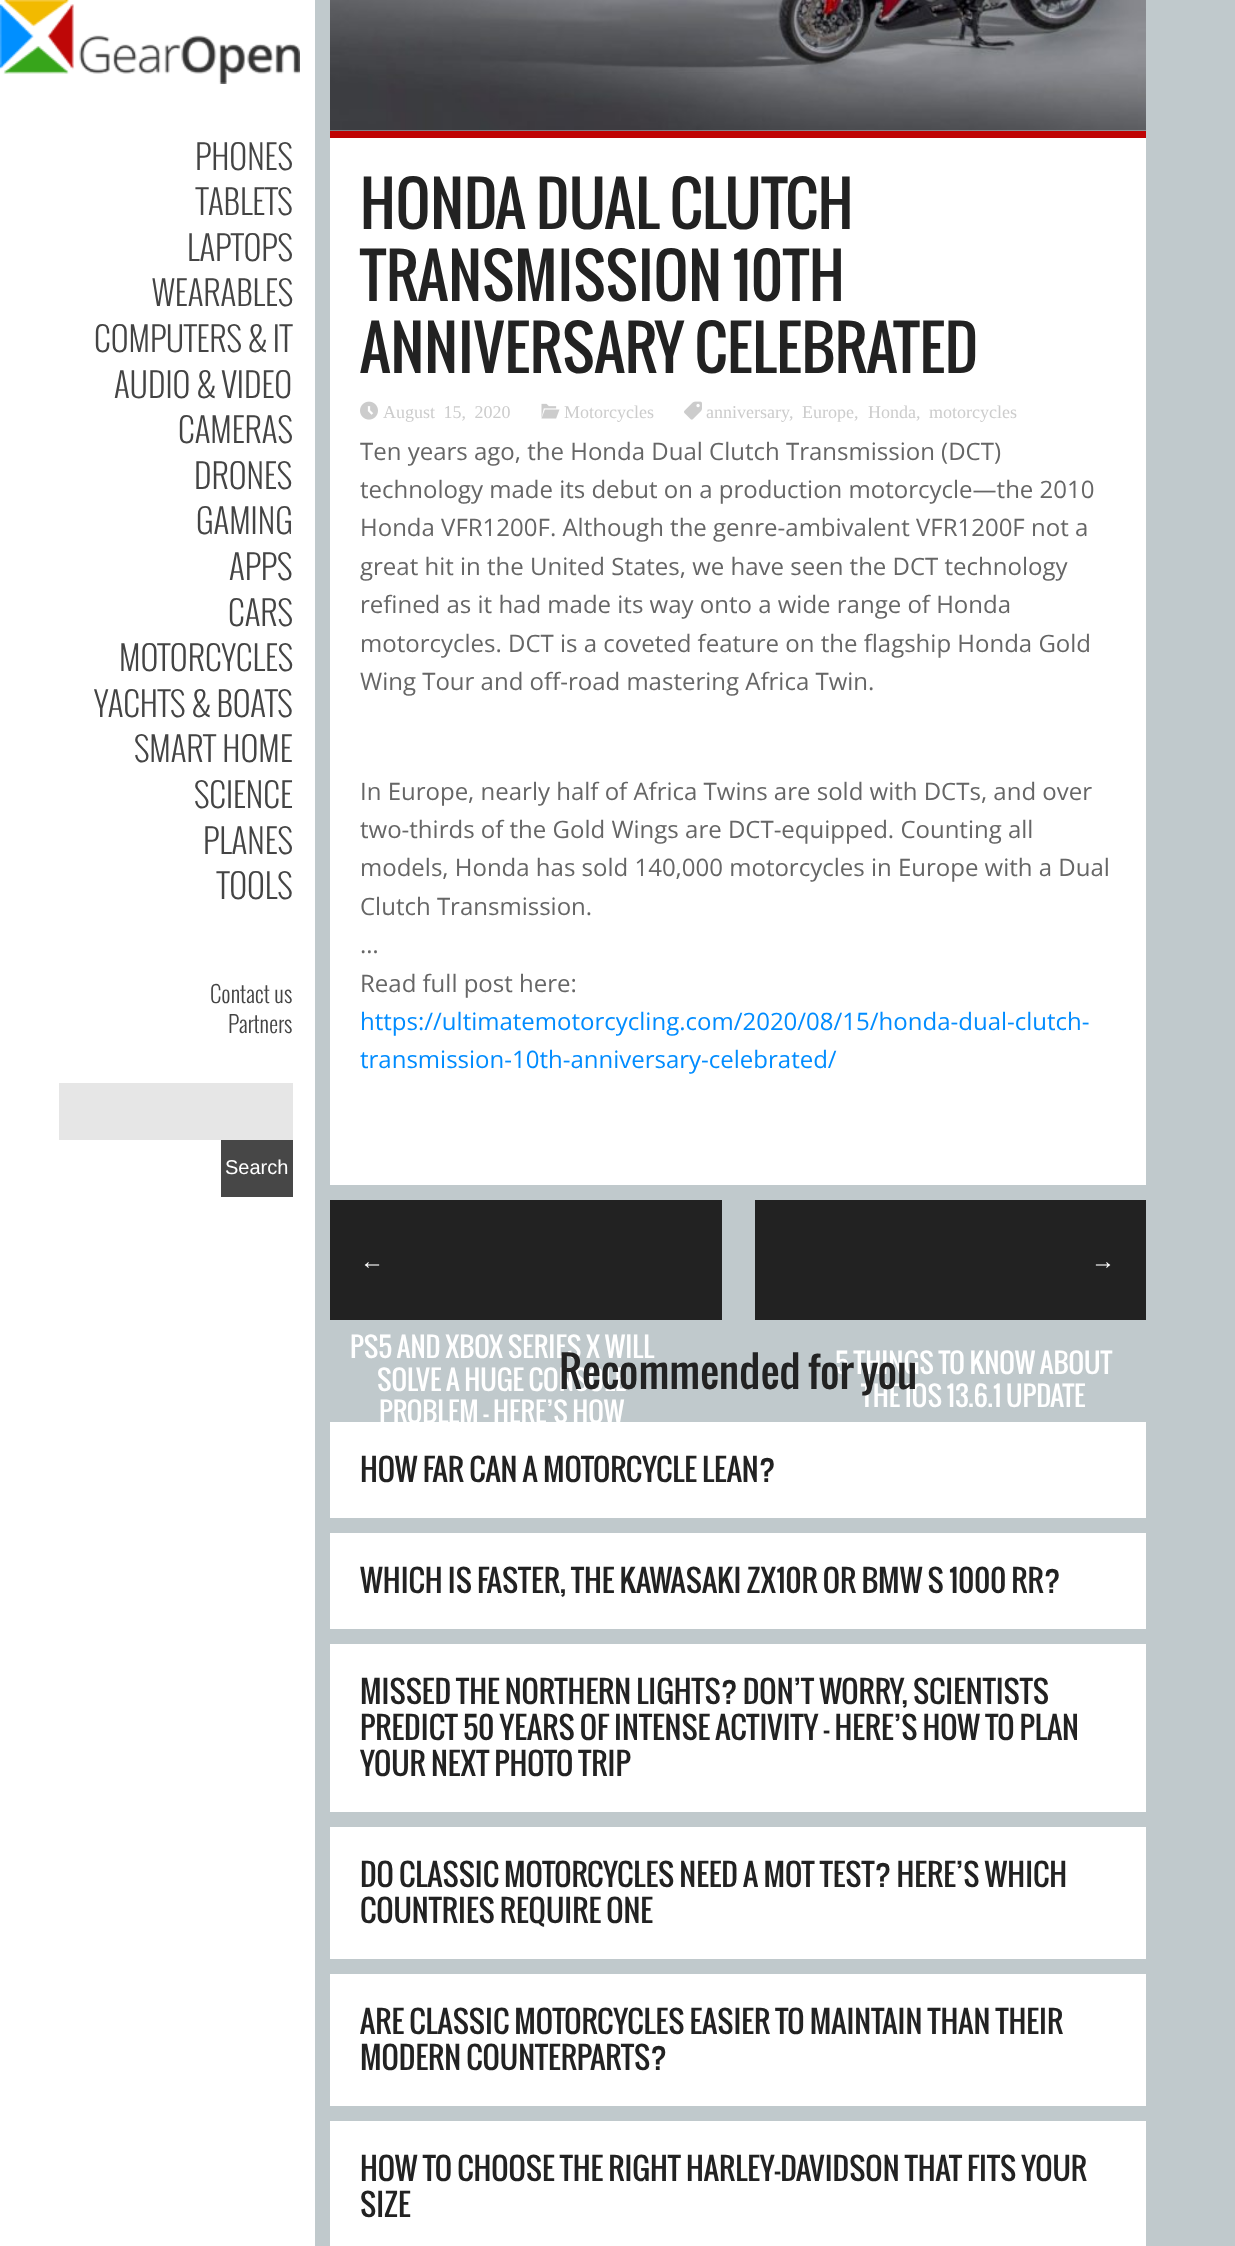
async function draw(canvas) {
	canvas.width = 1235;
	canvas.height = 2246;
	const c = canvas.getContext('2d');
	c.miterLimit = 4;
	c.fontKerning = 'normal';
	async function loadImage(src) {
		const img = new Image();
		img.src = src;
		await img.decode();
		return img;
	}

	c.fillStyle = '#c0c9cc';
	c.fillRect(0, 0, 1235, 2246);
	c.fillStyle = '#fff';
	c.fillRect(0, 0, 315, 2246);
	c.drawImage(await loadImage('img1.png'), 0, 0, 300, 84);
	c.font = '300 33px Oswald';
	c.fillStyle = '#444';
	for (const [text, x, y] of [
		['PHONES', 195, 170],
		['TABLETS', 196, 215],
		['LAPTOPS', 187, 261],
		['WEARABLES', 152, 306],
		['COMPUTERS & IT', 94, 352],
		['AUDIO & VIDEO', 114, 398],
		['CAMERAS', 178, 443],
		['DRONES', 194, 489],
		['GAMING', 196, 534],
		['APPS', 229, 580],
		['CARS', 228, 626],
		['MOTORCYCLES', 119, 671],
		['YACHTS & BOATS', 94, 717],
		['SMART HOME', 134, 762],
		['SCIENCE', 194, 808],
		['PLANES', 203, 854],
		['TOOLS', 217, 899],
	]) {
		c.fillText(text, x, y);
	}
	c.font = '300 22.5px Oswald';
	c.fillText('Contact us', 210, 1003);
	c.fillText('Partners', 228, 1033);
	c.fillStyle = '#e6e6e6';
	c.fillRect(59, 1083, 234, 57);
	c.fillStyle = '#474747';
	c.fillRect(221, 1140, 72, 57);
	c.font = '20px Liberation Sans';
	c.fillStyle = '#fff';
	c.fillText('Search', 225, 1174);
	c.drawImage(await loadImage('img2.png'), 330, 0, 816, 131);
	c.fillStyle = '#bf0404';
	c.fillRect(330, 131, 816, 7);
	c.fillStyle = '#fff';
	c.fillRect(330, 138, 816, 1047);
	c.font = '60px Oswald';
	c.fillStyle = '#222';
	for (const [text, x, y] of [
		['HONDA DUAL CLUTCH', 360, 229],
		['TRANSMISSION 10TH', 360, 301],
		['ANNIVERSARY CELEBRATED', 360, 373],
	]) {
		c.fillText(text, x, y);
	}
	c.drawImage(await loadImage('img3.png'), 360, 401, 18, 19);
	c.wordSpacing = '4px';
	c.font = '18px Liberation Serif';
	c.fillStyle = '#ccc';
	c.fillText('August 15, 2020', 383, 418);
	c.drawImage(await loadImage('img4.png'), 541, 403, 19, 16);
	c.wordSpacing = '0px';
	c.fillText('Motorcycles', 564, 418);
	c.drawImage(await loadImage('img5.png'), 684, 401, 18, 19);
	for (const [text, x, y] of [
		['anniversary', 706, 418],
		[',', 789, 418],
		['Europe,', 802, 418],
		['Honda,', 868, 418],
		['motorcycles', 929, 418],
	]) {
		c.fillText(text, x, y);
	}
	c.font = '24px Open Sans';
	c.fillStyle = '#666';
	for (const [text, x, y] of [
		['Ten years ago, the Honda Dual Clutch Transmission (DCT)', 360, 460],
		['technology made its debut on a production motorcycle—the 2010', 360, 498],
		['Honda VFR1200F. Although the genre-ambivalent VFR1200F not a', 360, 536],
		['great hit in the United States, we have seen the DCT technology', 360, 575],
		['refined as it had made its way onto a wide range of Honda', 360, 613],
		['motorcycles. DCT is a coveted feature on the flagship Honda Gold', 360, 652],
		['Wing Tour and off-road mastering Africa Twin.', 360, 690],
		['In Europe, nearly half of Africa Twins are sold with DCTs, and over', 360, 800],
		['two-thirds of the Gold Wings are DCT-equipped. Counting all', 360, 838],
		['models, Honda has sold 140,000 motorcycles in Europe with a Dual', 360, 876],
		['Clutch Transmission.', 360, 915],
		['…', 360, 953],
		['Read full post here:', 360, 992],
	]) {
		c.fillText(text, x, y);
	}
	c.fillStyle = '#008cff';
	c.fillText('https://ultimatemotorcycling.com/2020/08/15/honda-dual-clutch-', 360, 1030);
	c.fillText('transmission-10th-anniversary-celebrated/', 360, 1068);
	c.fillStyle = '#222';
	c.fillRect(330, 1200, 392, 120);
	c.font = '24px Liberation Sans';
	c.fillStyle = '#fff';
	c.fillText('←', 360, 1269);
	c.font = '27px Oswald';
	c.fillText('PS5 AND XBOX SERIES X WILL', 350, 1358);
	c.fillText('SOLVE A HUGE CONSOLE', 377, 1391);
	c.fillRect(330, 1422, 816, 96);
	c.fillText('PROBLEM — HERE’S HOW', 379, 1423);
	c.fillStyle = '#222';
	c.fillRect(755, 1200, 391, 120);
	c.font = '24px Liberation Sans';
	c.fillStyle = '#fff';
	c.fillText('→', 1091, 1269);
	c.font = '27px Oswald';
	c.fillText('5 THINGS TO KNOW ABOUT', 835, 1374);
	c.fillText('THE IOS 13.6.1 UPDATE', 861, 1407);
	c.font = '42px Oswald';
	c.fillStyle = '#222';
	c.fillText('Recommended for you', 559, 1389);
	c.font = '30px Oswald';
	c.fillText('HOW FAR CAN A MOTORCYCLE LEAN?', 360, 1482);
	c.fillStyle = '#fff';
	c.fillRect(330, 1533, 816, 96);
	c.fillStyle = '#222';
	c.fillText('WHICH IS FASTER, THE KAWASAKI ZX10R OR BMW S 1000 RR?', 360, 1593);
	c.fillStyle = '#fff';
	c.fillRect(330, 1644, 816, 168);
	c.fillStyle = '#222';
	for (const [text, x, y] of [
		['MISSED THE NORTHERN LIGHTS? DON’T WORRY, SCIENTISTS', 360, 1704],
		['PREDICT 50 YEARS OF INTENSE ACTIVITY – HERE’S HOW TO PLAN', 360, 1740],
		['YOUR NEXT PHOTO TRIP', 360, 1776],
	]) {
		c.fillText(text, x, y);
	}
	c.fillStyle = '#fff';
	c.fillRect(330, 1827, 816, 132);
	c.fillStyle = '#222';
	c.fillText('DO CLASSIC MOTORCYCLES NEED A MOT TEST? HERE’S WHICH', 360, 1887);
	c.fillText('COUNTRIES REQUIRE ONE', 360, 1923);
	c.fillStyle = '#fff';
	c.fillRect(330, 1974, 816, 132);
	c.fillStyle = '#222';
	c.fillText('ARE CLASSIC MOTORCYCLES EASIER TO MAINTAIN THAN THEIR', 360, 2034);
	c.fillText('MODERN COUNTERPARTS?', 360, 2070);
	c.fillStyle = '#fff';
	c.fillRect(330, 2121, 816, 125);
	c.fillStyle = '#222';
	c.fillText('HOW TO CHOOSE THE RIGHT HARLEY-DAVIDSON THAT FITS YOUR', 360, 2181);
	c.fillText('SIZE', 360, 2217);
}

draw(document.querySelector('canvas'));
